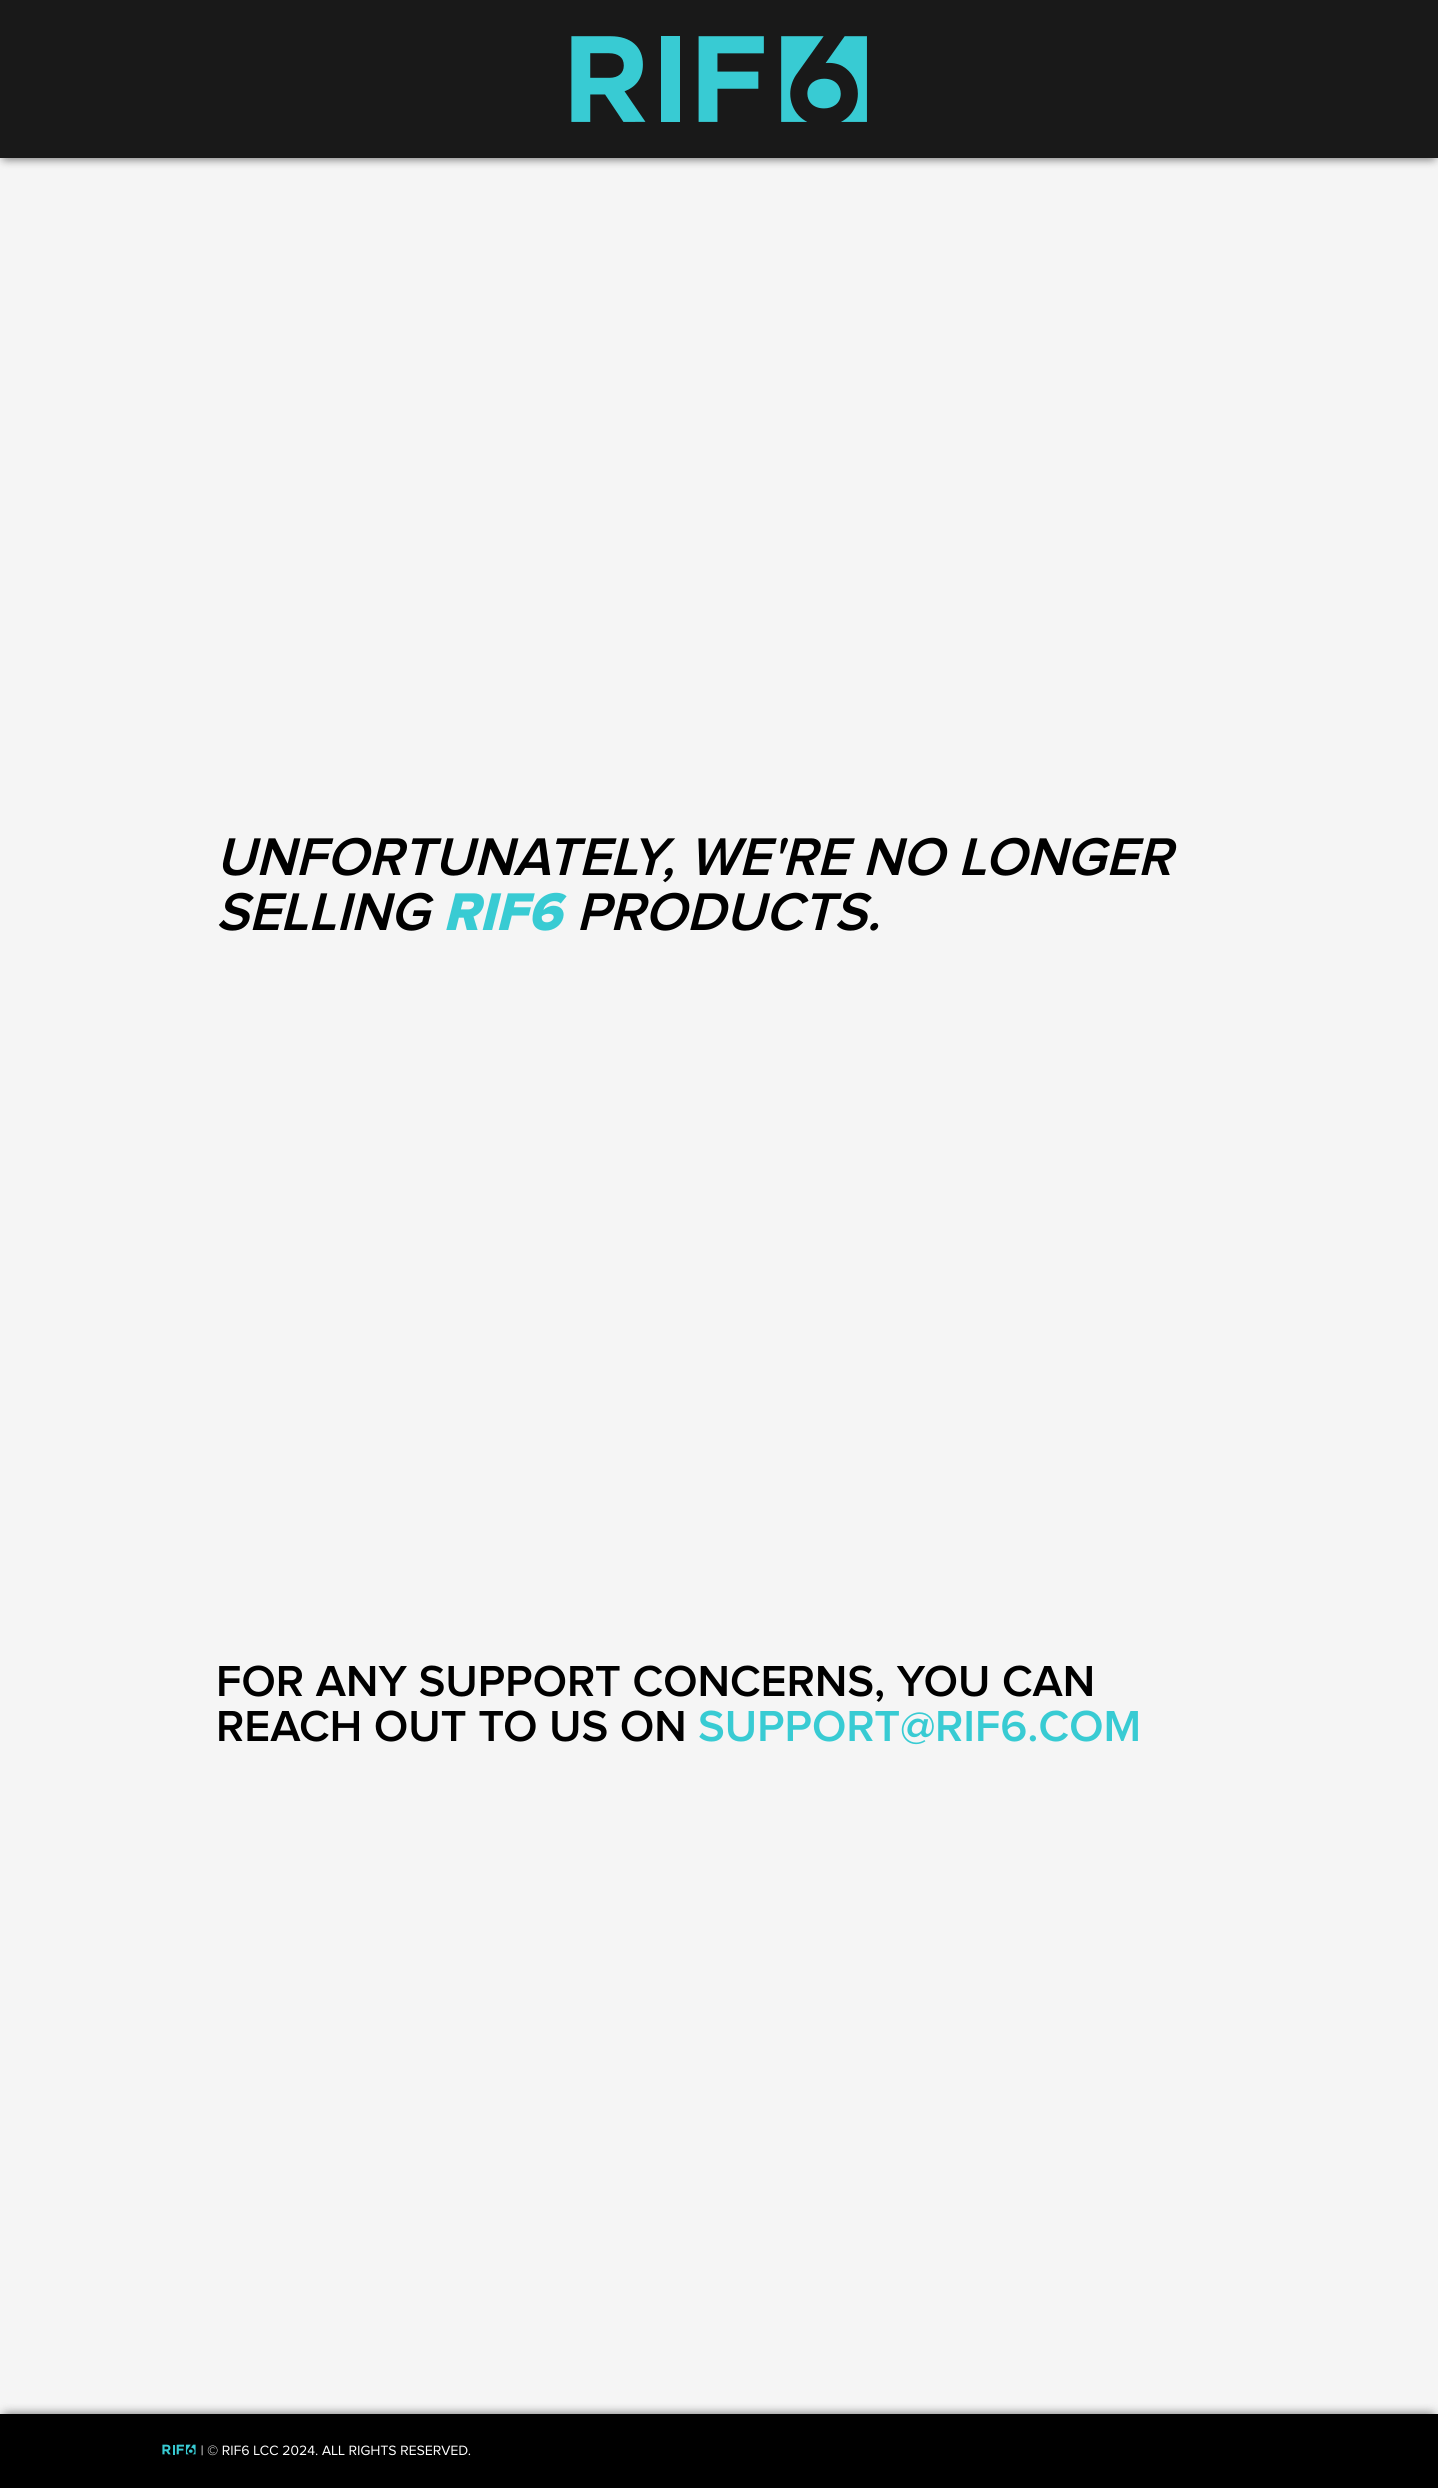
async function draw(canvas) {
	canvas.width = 1438;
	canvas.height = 2488;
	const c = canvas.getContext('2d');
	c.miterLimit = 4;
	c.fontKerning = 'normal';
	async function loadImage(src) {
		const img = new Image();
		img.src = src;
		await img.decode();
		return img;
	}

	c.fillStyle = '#f5f5f5';
	c.fillRect(0, 0, 1438, 2488);
	c.fillStyle = '#808080';
	c.filter = 'blur(4px)';
	c.beginPath();
	c.rect(2, 6, 1434, 154);
	c.fill();
	c.filter = 'none';
	c.fillStyle = '#191919';
	c.fillRect(0, 0, 1438, 158);
	c.drawImage(await loadImage('img1.png'), 571, 36, 296, 86);
	c.drawImage(await loadImage('img2.png'), 222, 837, 955, 46);
	c.drawImage(await loadImage('img3.png'), 218, 892, 216, 39);
	c.drawImage(await loadImage('img4.png'), 446, 892, 121, 39);
	c.drawImage(await loadImage('img5.png'), 580, 892, 299, 39);
	c.drawImage(await loadImage('img6.png'), 219, 1665, 873, 37);
	c.drawImage(await loadImage('img7.png'), 219, 1710, 465, 32);
	c.drawImage(await loadImage('img8.png'), 699, 1710, 235, 35);
	c.drawImage(await loadImage('img9.png'), 938, 1710, 200, 32);
	c.fillStyle = '#808080';
	c.filter = 'blur(5px)';
	c.beginPath();
	c.rect(3, 2413, 1432, 68);
	c.fill();
	c.filter = 'none';
	c.fillStyle = '#000';
	c.fillRect(0, 2414, 1438, 74);
	c.drawImage(await loadImage('img10.png'), 162, 2444, 34, 11);
	c.drawImage(await loadImage('img11.png'), 201, 2445, 270, 11);
}

draw(document.querySelector('canvas'));
